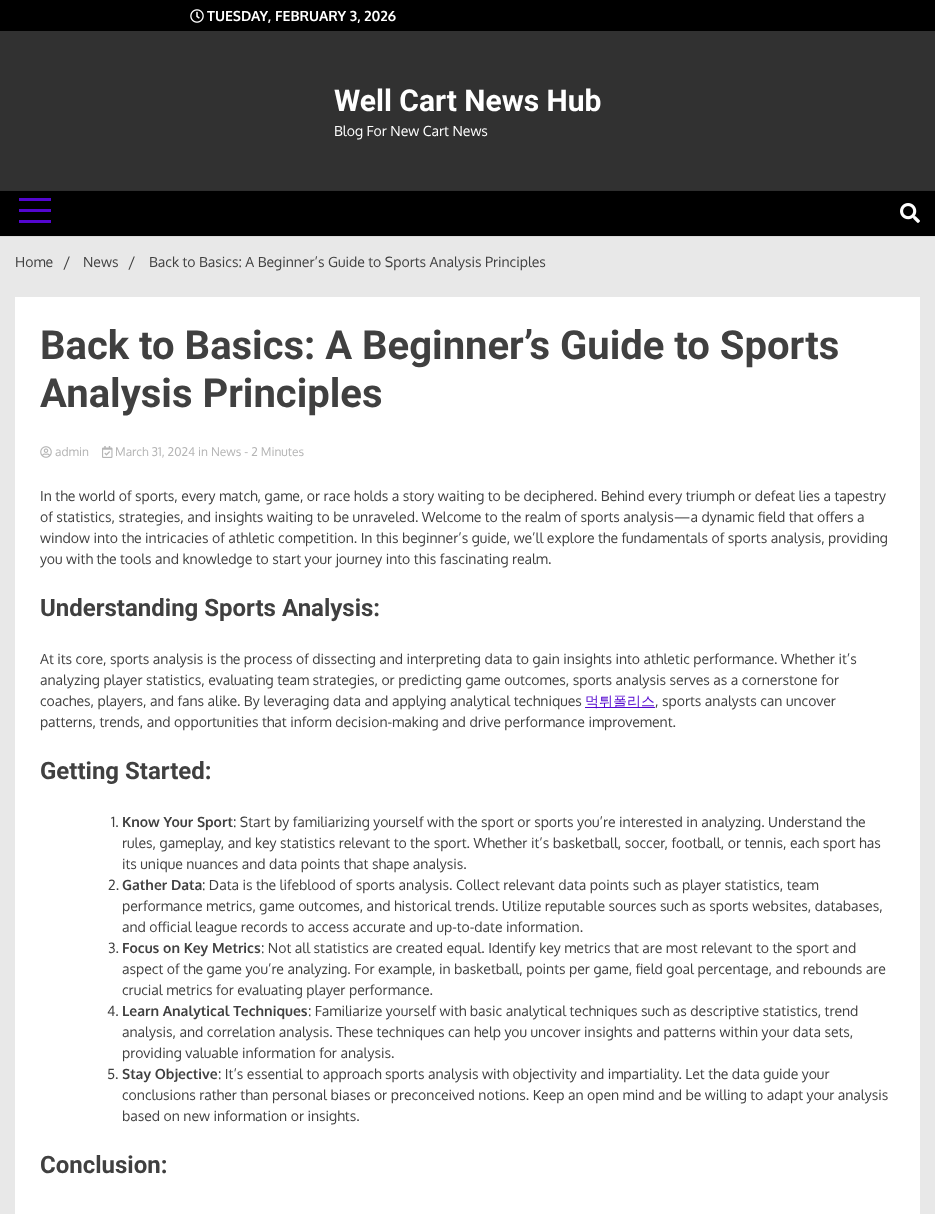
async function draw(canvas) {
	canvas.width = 935;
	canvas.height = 1214;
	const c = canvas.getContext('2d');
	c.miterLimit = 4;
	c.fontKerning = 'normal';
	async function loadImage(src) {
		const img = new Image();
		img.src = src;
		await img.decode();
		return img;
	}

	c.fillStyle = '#e8e8e8';
	c.fillRect(0, 0, 935, 1214);
	c.fillStyle = '#000';
	c.fillRect(0, 0, 935, 31);
	c.drawImage(await loadImage('img1.png'), 190, 9, 14, 14);
	c.font = 'bold 14px Oxygen';
	c.fillStyle = '#fff';
	c.fillText('TUESDAY, FEBRUARY 3, 2026', 207, 21);
	c.fillStyle = '#313131';
	c.fillRect(0, 31, 935, 160);
	c.font = 'bold 30px Roboto';
	c.fillStyle = '#fff';
	c.fillText('Well Cart News Hub', 334, 111);
	c.font = '14px Oxygen';
	c.fillText('Blog For New Cart News', 334, 136);
	c.strokeStyle = '#0000000f';
	c.strokeRect(-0.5, 190.5, 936, 46);
	for (const [x, y, w, h, color] of [
		[0, 191, 935, 45, '#000'],
		[19, 198, 32, 3, '#5306cf'],
		[19, 209, 32, 3, '#5306cf'],
		[19, 220, 32, 3, '#5306cf'],
	]) {
		c.fillStyle = color;
		c.fillRect(x, y, w, h);
	}
	c.drawImage(await loadImage('img2.png'), 900, 203, 20, 20);
	c.fillStyle = '#404040';
	c.fillText('Home', 15, 267);
	c.font = '16px Oxygen';
	c.fillText('/', 63, 268);
	c.font = '14px Oxygen';
	c.fillText('News', 83, 267);
	c.font = '16px Oxygen';
	c.fillText('/', 128, 268);
	c.font = '14px Oxygen';
	c.fillText('Back to Basics: A Beginner’s Guide to Sports Analysis Principles', 149, 267);
	c.fillStyle = '#fff';
	c.fillRect(15, 297, 905, 917);
	c.font = 'bold 40px Roboto';
	c.fillStyle = '#404040';
	c.fillText('Back to Basics: A Beginner’s Guide to Sports', 40, 359);
	c.fillText('Analysis Principles', 40, 407);
	c.drawImage(await loadImage('img3.png'), 40, 446, 12, 12);
	c.font = '12px Oxygen';
	c.fillStyle = '#b5b5b5';
	c.fillText('admin', 55, 456);
	c.drawImage(await loadImage('img4.png'), 102, 446, 11, 12);
	c.fillText('March 31, 2024 in News - 2 Minutes', 115, 456);
	c.font = '14px Oxygen';
	c.fillStyle = '#404040';
	for (const [text, x, y] of [
		['In the world of sports, every match, game, or race holds a story waiting to be deciphered. Behind every triumph or defeat lies a tapestry', 40, 501],
		['of statistics, strategies, and insights waiting to be unraveled. Welcome to the realm of sports analysis—a dynamic field that offers a', 40, 522],
		['window into the intricacies of athletic competition. In this beginner’s guide, we’ll explore the fundamentals of sports analysis, providing', 40, 543],
		['you with the tools and knowledge to start your journey into this fascinating realm.', 40, 564],
	]) {
		c.fillText(text, x, y);
	}
	c.font = 'bold 24px Roboto';
	c.fillText('Understanding Sports Analysis:', 40, 616);
	c.font = '14px Oxygen';
	for (const [text, x, y] of [
		['At its core, sports analysis is the process of dissecting and interpreting data to gain insights into athletic performance. Whether it’s', 40, 664],
		['analyzing player statistics, evaluating team strategies, or predicting game outcomes, sports analysis serves as a cornerstone for', 40, 685],
		['coaches, players, and fans alike. By leveraging data and applying analytical techniques', 40, 706],
	]) {
		c.fillText(text, x, y);
	}
	c.fillStyle = '#5306cf';
	c.fillRect(585, 707, 70, 1);
	c.font = '500 14px WenQuanYi Zen Hei';
	c.fillText('먹튀폴리스', 585, 706);
	c.font = '14px Oxygen';
	c.fillStyle = '#404040';
	c.fillText(', sports analysts can uncover', 655, 706);
	c.fillText('patterns, trends, and opportunities that inform decision-making and drive performance improvement.', 40, 727);
	c.font = 'bold 24px Roboto';
	c.fillText('Getting Started:', 40, 779);
	c.font = '14px Oxygen';
	c.fillText('1.', 111, 827);
	c.font = 'bold 14px Oxygen';
	c.fillText('Know Your Sport', 122, 827);
	c.font = '14px Oxygen';
	for (const [text, x, y] of [
		[': Start by familiarizing yourself with the sport or sports you’re interested in analyzing. Understand the', 233, 827],
		['rules, gameplay, and key statistics relevant to the sport. Whether it’s basketball, soccer, football, or tennis, each sport has', 122, 848],
		['its unique nuances and data points that shape analysis.', 122, 869],
		['2.', 108, 890],
	]) {
		c.fillText(text, x, y);
	}
	c.font = 'bold 14px Oxygen';
	c.fillText('Gather Data', 122, 890);
	c.font = '14px Oxygen';
	for (const [text, x, y] of [
		[': Data is the lifeblood of sports analysis. Collect relevant data points such as player statistics, team', 202, 890],
		['performance metrics, game outcomes, and historical trends. Utilize reputable sources such as sports websites, databases,', 122, 911],
		['and official league records to access accurate and up-to-date information.', 122, 932],
		['3.', 108, 953],
	]) {
		c.fillText(text, x, y);
	}
	c.font = 'bold 14px Oxygen';
	c.fillText('Focus on Key Metrics', 122, 953);
	c.font = '14px Oxygen';
	for (const [text, x, y] of [
		[': Not all statistics are created equal. Identify key metrics that are most relevant to the sport and', 261, 953],
		['aspect of the game you’re analyzing. For example, in basketball, points per game, field goal percentage, and rebounds are', 122, 974],
		['crucial metrics for evaluating player performance.', 122, 995],
		['4.', 107, 1016],
	]) {
		c.fillText(text, x, y);
	}
	c.font = 'bold 14px Oxygen';
	c.fillText('Learn Analytical Techniques', 122, 1016);
	c.font = '14px Oxygen';
	for (const [text, x, y] of [
		[': Familiarize yourself with basic analytical techniques such as descriptive statistics, trend', 308, 1016],
		['analysis, and correlation analysis. These techniques can help you uncover insights and patterns within your data sets,', 122, 1037],
		['providing valuable information for analysis.', 122, 1058],
		['5.', 107, 1079],
	]) {
		c.fillText(text, x, y);
	}
	c.font = 'bold 14px Oxygen';
	c.fillText('Stay Objective', 122, 1079);
	c.font = '14px Oxygen';
	for (const [text, x, y] of [
		[': It’s essential to approach sports analysis with objectivity and impartiality. Let the data guide your', 218, 1079],
		['conclusions rather than personal biases or preconceived notions. Keep an open mind and be willing to adapt your analysis', 122, 1100],
		['based on new information or insights.', 122, 1121],
	]) {
		c.fillText(text, x, y);
	}
	c.font = 'bold 24px Roboto';
	c.fillText('Conclusion:', 40, 1173);
}

draw(document.querySelector('canvas'));
